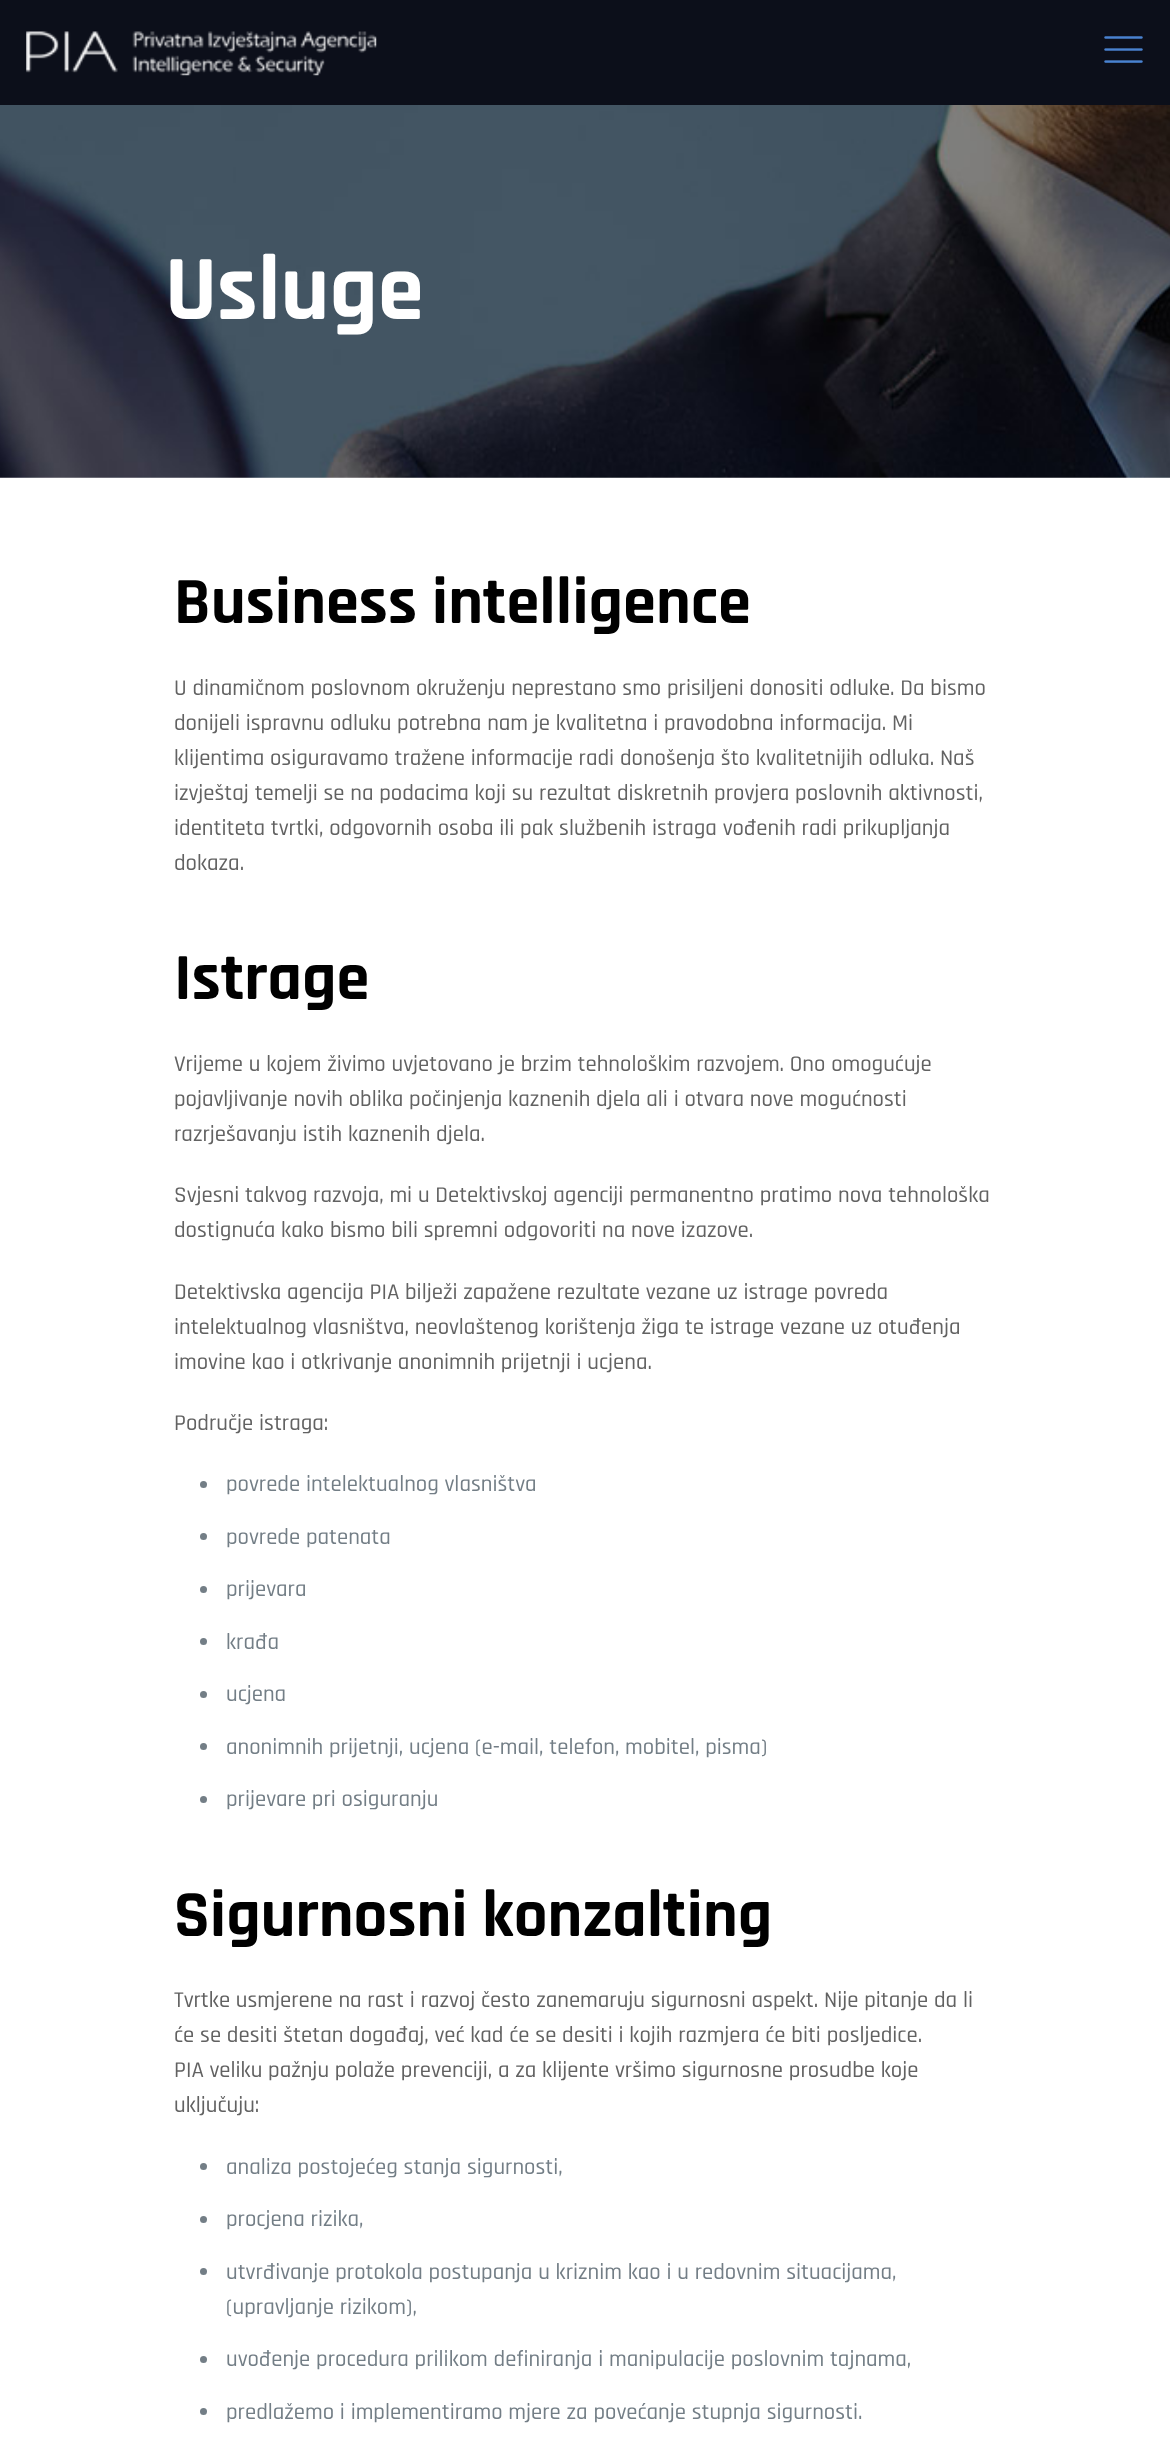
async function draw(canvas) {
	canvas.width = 1170;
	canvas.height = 2464;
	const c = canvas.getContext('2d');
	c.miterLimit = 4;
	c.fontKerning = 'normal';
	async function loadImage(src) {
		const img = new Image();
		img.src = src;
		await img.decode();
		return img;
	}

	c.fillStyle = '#fff';
	c.fillRect(0, 0, 1170, 2464);
	c.drawImage(await loadImage('img1.png'), 0, 105, 1170, 373);
	c.fillStyle = '#0c0f1a';
	c.fillRect(0, 0, 1170, 105);
	c.drawImage(await loadImage('img2.png'), 26, 31, 351, 45);
	c.drawImage(await loadImage('img3.png'), 1104, 36, 39, 27);
	c.font = 'bold 93px Rajdhani';
	c.fillStyle = '#fff';
	c.fillText('Usluge', 165, 319);
	c.font = 'bold 66.5px Rajdhani';
	c.fillStyle = '#000';
	c.fillText('Business intelligence', 174, 623);
	c.font = '500 22.75px Rajdhani';
	c.fillStyle = '#626262';
	for (const [text, x, y] of [
		['U dinamičnom poslovnom okruženju neprestano smo prisiljeni donositi odluke. Da bismo', 174, 695],
		['donijeli ispravnu odluku potrebna nam je kvalitetna i pravodobna informacija. Mi', 174, 730],
		['klijentima osiguravamo tražene informacije radi donošenja što kvalitetnijih odluka. Naš', 174, 765],
		['izvještaj temelji se na podacima koji su rezultat diskretnih provjera poslovnih aktivnosti,', 174, 800],
		['identiteta tvrtki, odgovornih osoba ili pak službenih istraga vođenih radi prikupljanja', 174, 835],
		['dokaza.', 174, 870],
	]) {
		c.fillText(text, x, y);
	}
	c.font = 'bold 66.5px Rajdhani';
	c.fillStyle = '#000';
	c.fillText('Istrage', 174, 999);
	c.font = '500 22.75px Rajdhani';
	c.fillStyle = '#626262';
	for (const [text, x, y] of [
		['Vrijeme u kojem živimo uvjetovano je brzim tehnološkim razvojem. Ono omogućuje', 174, 1071],
		['pojavljivanje novih oblika počinjenja kaznenih djela ali i otvara nove mogućnosti', 174, 1106],
		['razrješavanju istih kaznenih djela.', 174, 1141],
		['Svjesni takvog razvoja, mi u Detektivskoj agenciji permanentno pratimo nova tehnološka', 174, 1202],
		['dostignuća kako bismo bili spremni odgovoriti na nove izazove.', 174, 1237],
		['Detektivska agencija PIA bilježi zapažene rezultate vezane uz istrage povreda', 174, 1299],
		['intelektualnog vlasništva, neovlaštenog korištenja žiga te istrage vezane uz otuđenja', 174, 1334],
		['imovine kao i otkrivanje anonimnih prijetnji i ucjena.', 174, 1369],
		['Područje istraga:', 174, 1430],
	]) {
		c.fillText(text, x, y);
	}
	c.fillStyle = '#737e86';
	c.beginPath();
	c.arc(203.5, 1484.5, 3.5, 0, 2 * Math.PI);
	c.fill();
	c.fillText('povrede intelektualnog vlasništva', 226, 1491);
	c.beginPath();
	c.arc(203.5, 1536.5, 3.5, 0, 2 * Math.PI);
	c.fill();
	c.fillText('povrede patenata', 226, 1544);
	c.beginPath();
	c.arc(203.5, 1589.5, 3.5, 0, 2 * Math.PI);
	c.fill();
	c.fillText('prijevara', 226, 1596);
	c.beginPath();
	c.arc(203.5, 1641.5, 3.5, 0, 2 * Math.PI);
	c.fill();
	c.fillText('krađa', 226, 1649);
	c.beginPath();
	c.arc(203.5, 1694.5, 3.5, 0, 2 * Math.PI);
	c.fill();
	c.fillText('ucjena', 226, 1701);
	c.beginPath();
	c.arc(203.5, 1746.5, 3.5, 0, 2 * Math.PI);
	c.fill();
	c.fillText('anonimnih prijetnji, ucjena (e-mail, telefon, mobitel, pisma)', 226, 1754);
	c.beginPath();
	c.arc(203.5, 1799.5, 3.5, 0, 2 * Math.PI);
	c.fill();
	c.fillText('prijevare pri osiguranju', 226, 1806);
	c.font = 'bold 66.5px Rajdhani';
	c.fillStyle = '#000';
	c.fillText('Sigurnosni konzalting', 174, 1936);
	c.font = '500 22.75px Rajdhani';
	c.fillStyle = '#626262';
	for (const [text, x, y] of [
		['Tvrtke usmjerene na rast i razvoj često zanemaruju sigurnosni aspekt. Nije pitanje da li', 174, 2007],
		['će se desiti štetan događaj, već kad će se desiti i kojih razmjera će biti posljedice.', 174, 2042],
		['PIA veliku pažnju polaže prevenciji, a za klijente vršimo sigurnosne prosudbe koje', 174, 2077],
		['uključuju:', 174, 2112],
	]) {
		c.fillText(text, x, y);
	}
	c.fillStyle = '#737e86';
	c.beginPath();
	c.arc(203.5, 2166.5, 3.5, 0, 2 * Math.PI);
	c.fill();
	c.fillText('analiza postojećeg stanja sigurnosti,', 226, 2174);
	c.beginPath();
	c.arc(203.5, 2219.5, 3.5, 0, 2 * Math.PI);
	c.fill();
	c.fillText('procjena rizika,', 226, 2226);
	c.beginPath();
	c.arc(203.5, 2271.5, 3.5, 0, 2 * Math.PI);
	c.fill();
	c.fillText('utvrđivanje protokola postupanja u kriznim kao i u redovnim situacijama,', 226, 2279);
	c.fillText('(upravljanje rizikom),', 226, 2314);
	c.beginPath();
	c.arc(203.5, 2359.5, 3.5, 0, 2 * Math.PI);
	c.fill();
	c.fillText('uvođenje procedura prilikom definiranja i manipulacije poslovnim tajnama,', 226, 2366);
	c.beginPath();
	c.arc(203.5, 2411.5, 3.5, 0, 2 * Math.PI);
	c.fill();
	c.fillText('predlažemo i implementiramo mjere za povećanje stupnja sigurnosti.', 226, 2419);
}

draw(document.querySelector('canvas'));
